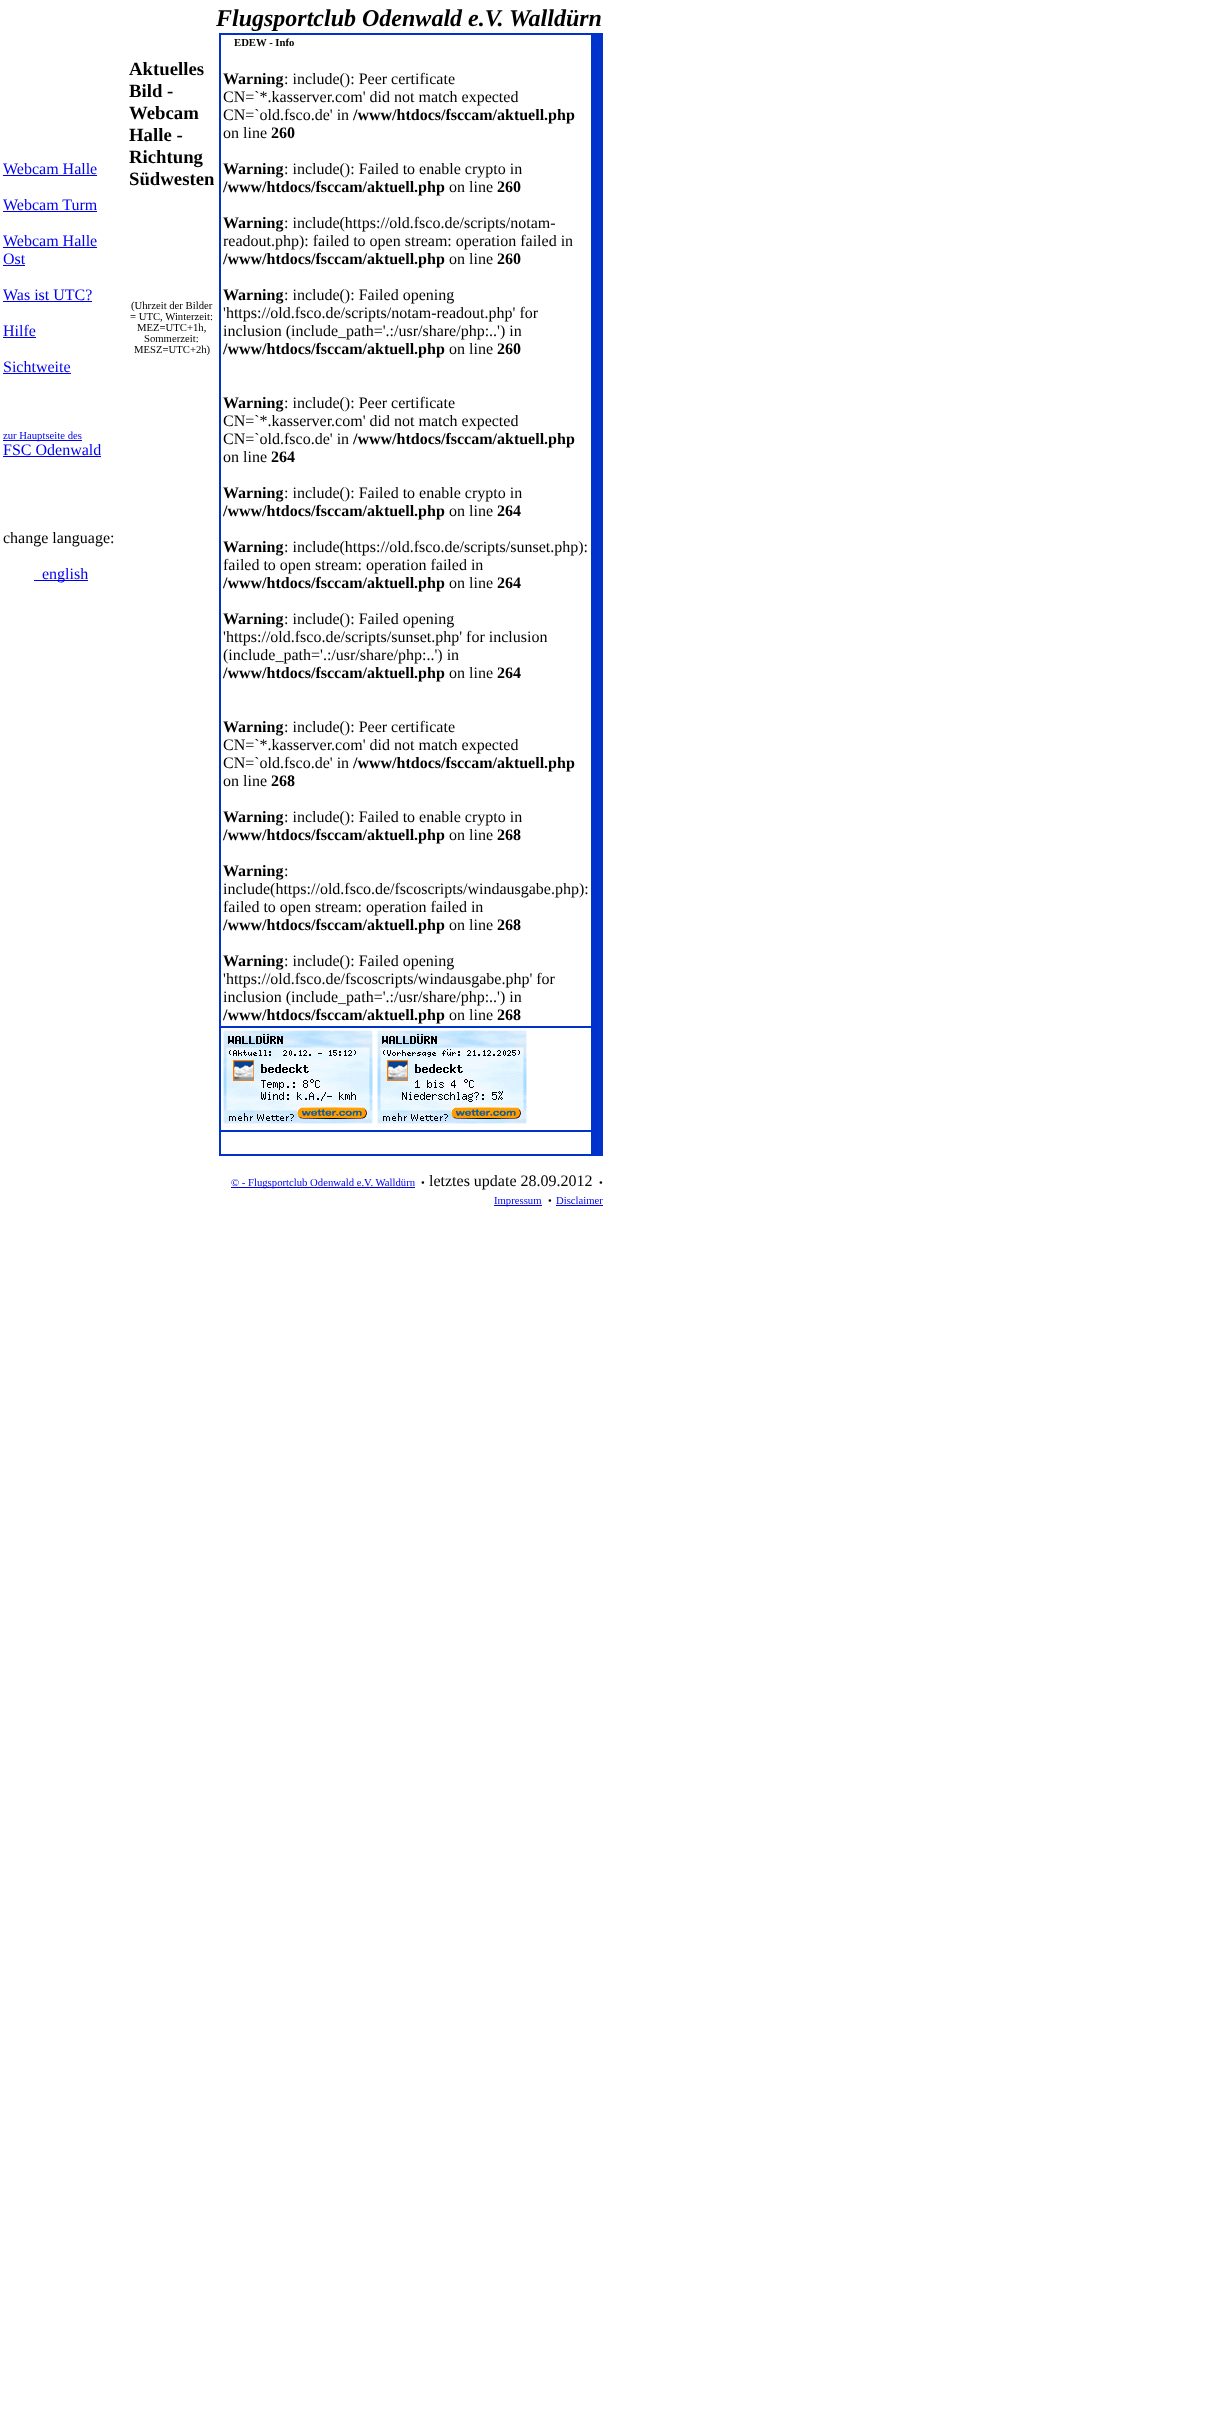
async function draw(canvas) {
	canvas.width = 1214;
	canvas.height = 2424;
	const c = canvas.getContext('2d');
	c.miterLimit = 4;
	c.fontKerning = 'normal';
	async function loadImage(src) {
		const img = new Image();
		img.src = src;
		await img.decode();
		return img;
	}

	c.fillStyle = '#fff';
	c.fillRect(0, 0, 1214, 2424);
	c.font = '16px Liberation Serif';
	c.fillStyle = '#00e';
	c.fillText('Webcam Halle', 3, 174);
	c.fillRect(3, 175, 94, 1);
	c.fillText('Webcam Turm', 3, 210);
	c.fillRect(3, 211, 94, 1);
	c.fillText('Webcam Halle', 3, 246);
	c.fillRect(3, 247, 94, 1);
	c.fillText('Ost', 3, 264);
	c.fillRect(3, 265, 22, 1);
	c.fillText('Was ist UTC?', 3, 300);
	c.fillRect(3, 301, 89, 1);
	c.fillText('Hilfe', 3, 336);
	c.fillRect(3, 337, 33, 1);
	c.fillText('Sichtweite', 3, 372);
	c.fillRect(3, 373, 68, 1);
	c.fillRect(3, 440, 79, 1);
	c.font = '10.7px Liberation Serif';
	c.fillText('zur Hauptseite des', 3, 439);
	c.font = '16px Liberation Serif';
	c.fillText('FSC Odenwald', 3, 455);
	c.fillRect(3, 456, 98, 1);
	c.fillStyle = '#000';
	c.fillText('change language:', 3, 543);
	c.fillStyle = '#00e';
	c.fillRect(34, 580, 54, 1);
	c.fillText('english', 42, 579);
	c.font = 'italic bold 24px Liberation Serif';
	c.fillStyle = '#000';
	c.fillText('Flugsportclub Odenwald e.V.', 216, 26);
	c.fillText('Walldürn', 509, 26);
	c.font = 'bold 18.75px Liberation Serif';
	for (const [text, x, y] of [
		['Aktuelles', 129, 75],
		['Bild -', 129, 97],
		['Webcam', 129, 119],
		['Halle -', 129, 141],
		['Richtung', 129, 163],
		['Südwesten', 129, 185],
	]) {
		c.fillText(text, x, y);
	}
	c.font = '10.7px Liberation Serif';
	for (const [text, x, y] of [
		['(Uhrzeit der Bilder', 131, 309],
		['= UTC, Winterzeit:', 130, 320],
		['MEZ=UTC+1h,', 137, 331],
		['Sommerzeit:', 144, 342],
		['MESZ=UTC+2h)', 134, 353],
	]) {
		c.fillText(text, x, y);
	}
	for (const [x, y, w, h, color] of [
		[591, 33, 12, 1, '#03c'],
		[602, 1026, 1, 130, '#03c'],
		[591, 1154, 12, 2, '#03c'],
		[591, 1130, 1, 26, '#03c'],
		[219, 1130, 374, 2, '#03c'],
		[591, 1026, 1, 106, '#03c'],
		[219, 1026, 374, 2, '#03c'],
		[591, 33, 1, 995, '#03c'],
		[219, 33, 374, 2, '#03c'],
		[219, 1154, 374, 2, '#03c'],
		[219, 1130, 2, 26, '#03c'],
		[219, 1026, 2, 106, '#03c'],
		[219, 33, 2, 995, '#03c'],
	]) {
		c.fillStyle = color;
		c.fillRect(x, y, w, h);
	}
	c.font = 'bold 10.7px Liberation Serif';
	c.fillStyle = '#000';
	c.fillText('EDEW - Info', 234, 46);
	c.font = 'bold 16px Liberation Serif';
	c.fillText('Warning', 223, 84);
	c.font = '16px Liberation Serif';
	for (const [text, x, y] of [
		[': include(): Peer certificate', 284, 84],
		['CN=`*.kasserver.com\' did not match expected', 223, 102],
		['CN=`old.fsco.de\' in', 223, 120],
	]) {
		c.fillText(text, x, y);
	}
	c.font = 'bold 16px Liberation Serif';
	c.fillText('/www/htdocs/fsccam/aktuell.php', 353, 120);
	c.font = '16px Liberation Serif';
	c.fillText('on line', 223, 138);
	c.font = 'bold 16px Liberation Serif';
	c.fillText('260', 271, 138);
	c.fillText('Warning', 223, 174);
	c.font = '16px Liberation Serif';
	c.fillText(': include(): Failed to enable crypto in', 284, 174);
	c.font = 'bold 16px Liberation Serif';
	c.fillText('/www/htdocs/fsccam/aktuell.php', 223, 192);
	c.font = '16px Liberation Serif';
	c.fillText('on line', 449, 192);
	c.font = 'bold 16px Liberation Serif';
	c.fillText('260', 497, 192);
	c.fillText('Warning', 223, 228);
	c.font = '16px Liberation Serif';
	c.fillText(': include(https://old.fsco.de/scripts/notam-', 284, 228);
	c.fillText('readout.php): failed to open stream: operation failed in', 223, 246);
	c.font = 'bold 16px Liberation Serif';
	c.fillText('/www/htdocs/fsccam/aktuell.php', 223, 264);
	c.font = '16px Liberation Serif';
	c.fillText('on line', 449, 264);
	c.font = 'bold 16px Liberation Serif';
	c.fillText('260', 497, 264);
	c.fillText('Warning', 223, 300);
	c.font = '16px Liberation Serif';
	for (const [text, x, y] of [
		[': include(): Failed opening', 284, 300],
		['\'https://old.fsco.de/scripts/notam-readout.php\' for', 223, 318],
		['inclusion (include_path=\'.:/usr/share/php:..\') in', 223, 336],
	]) {
		c.fillText(text, x, y);
	}
	c.font = 'bold 16px Liberation Serif';
	c.fillText('/www/htdocs/fsccam/aktuell.php', 223, 354);
	c.font = '16px Liberation Serif';
	c.fillText('on line', 449, 354);
	c.font = 'bold 16px Liberation Serif';
	c.fillText('260', 497, 354);
	c.fillText('Warning', 223, 408);
	c.font = '16px Liberation Serif';
	for (const [text, x, y] of [
		[': include(): Peer certificate', 284, 408],
		['CN=`*.kasserver.com\' did not match expected', 223, 426],
		['CN=`old.fsco.de\' in', 223, 444],
	]) {
		c.fillText(text, x, y);
	}
	c.font = 'bold 16px Liberation Serif';
	c.fillText('/www/htdocs/fsccam/aktuell.php', 353, 444);
	c.font = '16px Liberation Serif';
	c.fillText('on line', 223, 462);
	c.font = 'bold 16px Liberation Serif';
	c.fillText('264', 271, 462);
	c.fillText('Warning', 223, 498);
	c.font = '16px Liberation Serif';
	c.fillText(': include(): Failed to enable crypto in', 284, 498);
	c.font = 'bold 16px Liberation Serif';
	c.fillText('/www/htdocs/fsccam/aktuell.php', 223, 516);
	c.font = '16px Liberation Serif';
	c.fillText('on line', 449, 516);
	c.font = 'bold 16px Liberation Serif';
	c.fillText('264', 497, 516);
	c.fillText('Warning', 223, 552);
	c.font = '16px Liberation Serif';
	c.fillText(': include(https://old.fsco.de/scripts/sunset.php):', 284, 552);
	c.fillText('failed to open stream: operation failed in', 223, 570);
	c.font = 'bold 16px Liberation Serif';
	c.fillText('/www/htdocs/fsccam/aktuell.php', 223, 588);
	c.font = '16px Liberation Serif';
	c.fillText('on line', 449, 588);
	c.font = 'bold 16px Liberation Serif';
	c.fillText('264', 497, 588);
	c.fillText('Warning', 223, 624);
	c.font = '16px Liberation Serif';
	for (const [text, x, y] of [
		[': include(): Failed opening', 284, 624],
		['\'https://old.fsco.de/scripts/sunset.php\' for inclusion', 223, 642],
		['(include_path=\'.:/usr/share/php:..\') in', 223, 660],
	]) {
		c.fillText(text, x, y);
	}
	c.font = 'bold 16px Liberation Serif';
	c.fillText('/www/htdocs/fsccam/aktuell.php', 223, 678);
	c.font = '16px Liberation Serif';
	c.fillText('on line', 449, 678);
	c.font = 'bold 16px Liberation Serif';
	c.fillText('264', 497, 678);
	c.fillText('Warning', 223, 732);
	c.font = '16px Liberation Serif';
	for (const [text, x, y] of [
		[': include(): Peer certificate', 284, 732],
		['CN=`*.kasserver.com\' did not match expected', 223, 750],
		['CN=`old.fsco.de\' in', 223, 768],
	]) {
		c.fillText(text, x, y);
	}
	c.font = 'bold 16px Liberation Serif';
	c.fillText('/www/htdocs/fsccam/aktuell.php', 353, 768);
	c.font = '16px Liberation Serif';
	c.fillText('on line', 223, 786);
	c.font = 'bold 16px Liberation Serif';
	c.fillText('268', 271, 786);
	c.fillText('Warning', 223, 822);
	c.font = '16px Liberation Serif';
	c.fillText(': include(): Failed to enable crypto in', 284, 822);
	c.font = 'bold 16px Liberation Serif';
	c.fillText('/www/htdocs/fsccam/aktuell.php', 223, 840);
	c.font = '16px Liberation Serif';
	c.fillText('on line', 449, 840);
	c.font = 'bold 16px Liberation Serif';
	c.fillText('268', 497, 840);
	c.fillText('Warning', 223, 876);
	c.font = '16px Liberation Serif';
	for (const [text, x, y] of [
		[':', 284, 876],
		['include(https://old.fsco.de/fscoscripts/windausgabe.php):', 223, 894],
		['failed to open stream: operation failed in', 223, 912],
	]) {
		c.fillText(text, x, y);
	}
	c.font = 'bold 16px Liberation Serif';
	c.fillText('/www/htdocs/fsccam/aktuell.php', 223, 930);
	c.font = '16px Liberation Serif';
	c.fillText('on line', 449, 930);
	c.font = 'bold 16px Liberation Serif';
	c.fillText('268', 497, 930);
	c.fillText('Warning', 223, 966);
	c.font = '16px Liberation Serif';
	for (const [text, x, y] of [
		[': include(): Failed opening', 284, 966],
		['\'https://old.fsco.de/fscoscripts/windausgabe.php\' for', 223, 984],
		['inclusion (include_path=\'.:/usr/share/php:..\') in', 223, 1002],
	]) {
		c.fillText(text, x, y);
	}
	c.font = 'bold 16px Liberation Serif';
	c.fillText('/www/htdocs/fsccam/aktuell.php', 223, 1020);
	c.font = '16px Liberation Serif';
	c.fillText('on line', 449, 1020);
	c.font = 'bold 16px Liberation Serif';
	c.fillText('268', 497, 1020);
	c.fillStyle = '#03c';
	c.fillRect(601, 33, 2, 995);
	c.fillRect(592, 34, 9, 993);
	c.drawImage(await loadImage('img1.png'), 223, 1030, 150, 94);
	c.drawImage(await loadImage('img2.png'), 377, 1030, 150, 94);
	c.fillRect(592, 1027, 10, 127);
	c.fillStyle = '#00e';
	c.fillRect(231, 1187, 184, 1);
	c.font = '10.7px Liberation Serif';
	c.fillText('© - Flugsportclub Odenwald e.V. Walldürn', 231, 1186);
	c.fillStyle = '#000';
	c.fillText('•', 421, 1186);
	c.font = '16px Liberation Serif';
	c.fillText('letztes update 28.09.2012', 429, 1186);
	c.font = '10.7px Liberation Serif';
	c.fillText('•', 599, 1186);
	c.fillStyle = '#00e';
	c.fillRect(494, 1205, 48, 1);
	c.fillText('Impressum', 494, 1204);
	c.fillStyle = '#000';
	c.fillText('•', 548, 1204);
	c.fillStyle = '#00e';
	c.fillText('Disclaimer', 556, 1204);
	c.fillRect(556, 1205, 47, 1);
}

draw(document.querySelector('canvas'));
